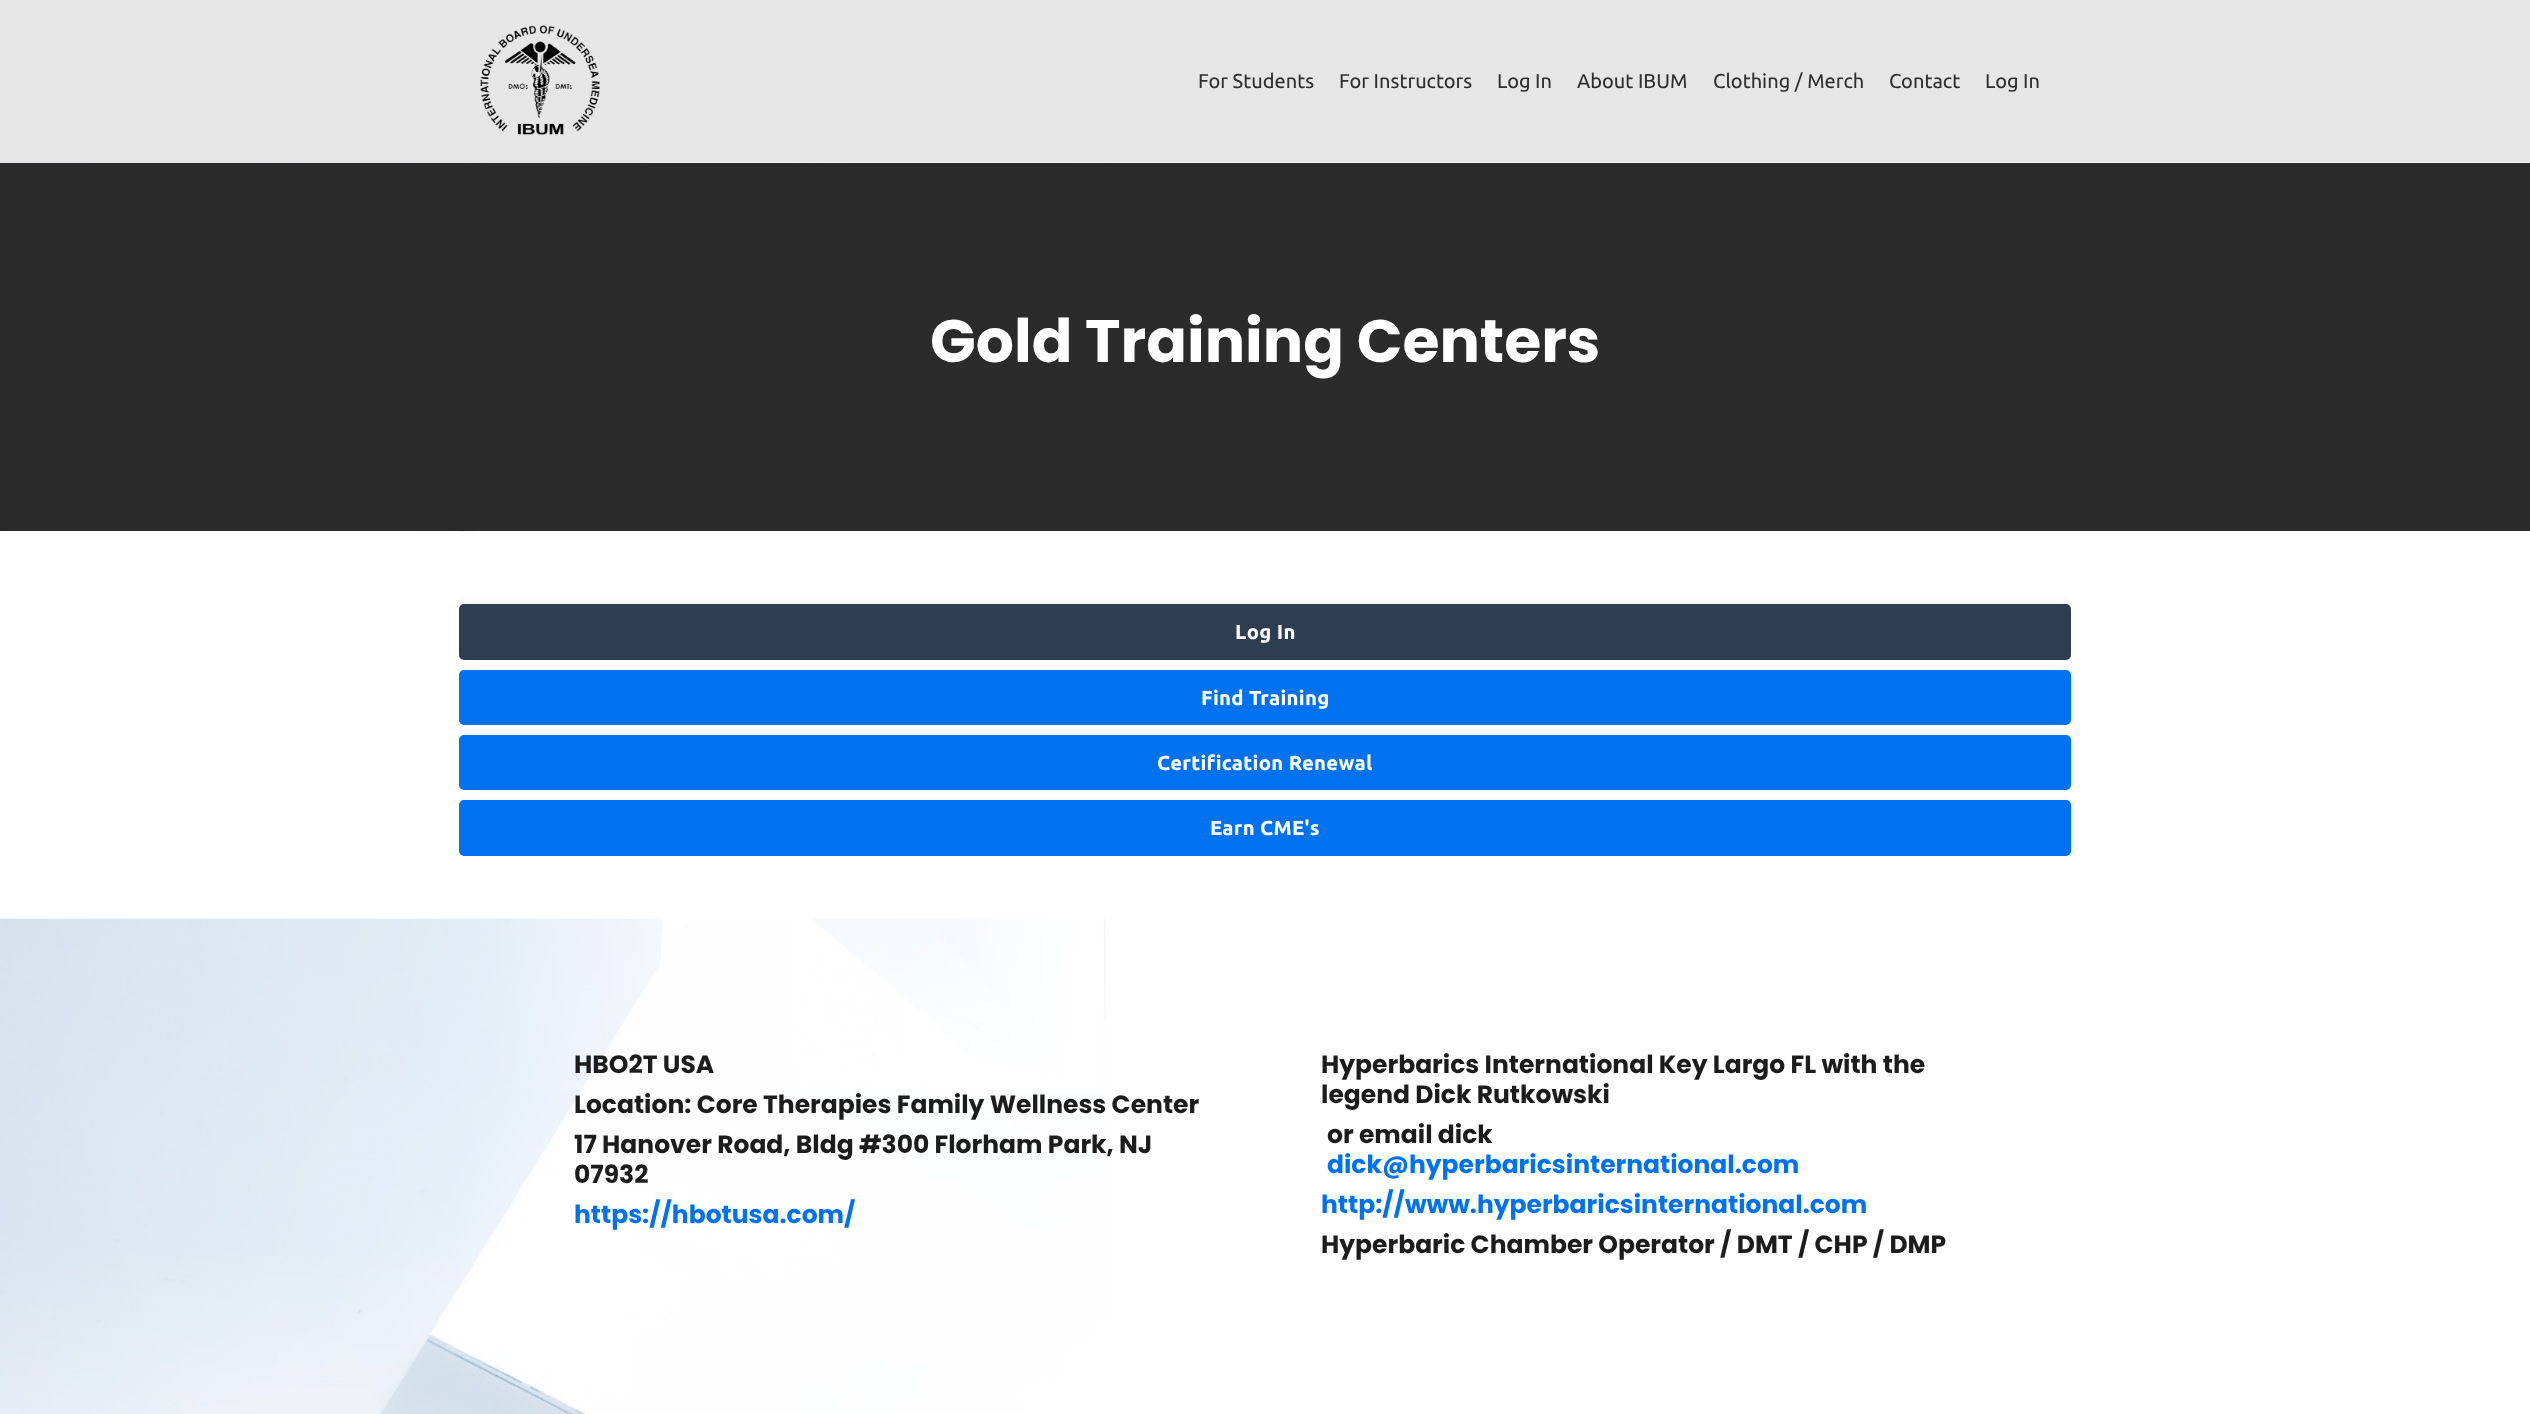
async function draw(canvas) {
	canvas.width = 2530;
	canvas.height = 1414;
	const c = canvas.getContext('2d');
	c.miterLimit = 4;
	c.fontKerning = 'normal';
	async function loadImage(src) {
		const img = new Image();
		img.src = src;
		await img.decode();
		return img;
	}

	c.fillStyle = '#fff';
	c.fillRect(0, 0, 2530, 1414);
	c.fillStyle = '#e6e6e6';
	c.fillRect(0, 0, 2530, 163);
	c.drawImage(await loadImage('img1.png'), 480, 25, 120, 110);
	c.font = '20px Ubuntu';
	c.fillStyle = '#2f2f2f';
	for (const [text, x, y] of [
		['For Students', 1198, 88],
		['For Instructors', 1339, 88],
		['Log In', 1497, 88],
		['About IBUM', 1577, 88],
		['Clothing / Merch', 1713, 88],
		['Contact', 1889, 88],
		['Log In', 1985, 88],
	]) {
		c.fillText(text, x, y);
	}
	c.drawImage(await loadImage('img2.png'), 0, 162, 2530, 370);
	c.fillStyle = '#2b2b2b';
	c.fillRect(0, 163, 2530, 368);
	c.font = 'bold 60px Poppins';
	c.fillStyle = '#fff';
	c.fillText('Gold Training Centers', 930, 362);
	c.save();
	c.beginPath();
	c.roundRect(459, 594, 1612, 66, 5);
	c.clip();
	c.fillStyle = '#0000001a';
	c.filter = 'blur(6px)';
	c.beginPath();
	c.roundRect(459, 606, 1612, 57, 5);
	c.fill();
	c.filter = 'none';
	c.restore();
	c.fillStyle = '#2c3e50';
	c.beginPath();
	c.roundRect(460.5, 605.5, 1609, 53, 3.5);
	c.fill();
	c.strokeStyle = '#2c3e50';
	c.lineWidth = 3;
	c.stroke();
	c.letterSpacing = '0.3px';
	c.font = 'bold 20.25px Ubuntu';
	c.fillStyle = '#fff';
	c.fillText('Log In', 1235, 639);
	c.save();
	c.beginPath();
	c.roundRect(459, 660, 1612, 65, 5);
	c.clip();
	c.fillStyle = '#0000001a';
	c.filter = 'blur(6px)';
	c.beginPath();
	c.roundRect(459, 673, 1612, 55, 5);
	c.fill();
	c.filter = 'none';
	c.restore();
	c.fillStyle = '#0072ef';
	c.beginPath();
	c.roundRect(460.5, 671.5, 1609, 52, 3.5);
	c.fill();
	c.strokeStyle = '#0072ef';
	c.stroke();
	c.fillStyle = '#fff';
	c.fillText('Find Training', 1201, 705);
	c.save();
	c.beginPath();
	c.roundRect(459, 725, 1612, 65, 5);
	c.clip();
	c.fillStyle = '#0000001a';
	c.filter = 'blur(6px)';
	c.beginPath();
	c.roundRect(459, 738, 1612, 55, 5);
	c.fill();
	c.filter = 'none';
	c.restore();
	c.fillStyle = '#0072ef';
	c.beginPath();
	c.roundRect(460.5, 736.5, 1609, 52, 3.5);
	c.fill();
	c.stroke();
	c.fillStyle = '#fff';
	c.fillText('Certification Renewal', 1157, 770);
	c.save();
	c.beginPath();
	c.roundRect(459, 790, 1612, 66, 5);
	c.clip();
	c.fillStyle = '#0000001a';
	c.filter = 'blur(6px)';
	c.beginPath();
	c.roundRect(459, 803, 1612, 56, 5);
	c.fill();
	c.filter = 'none';
	c.restore();
	c.fillStyle = '#0072ef';
	c.beginPath();
	c.roundRect(460.5, 801.5, 1609, 53, 3.5);
	c.fill();
	c.stroke();
	c.fillStyle = '#fff';
	c.fillText('Earn CME\'s', 1210, 835);
	c.drawImage(await loadImage('img3.png'), 0, 918, 1106, 496);
	c.letterSpacing = '0px';
	c.font = 'bold 25px Poppins';
	c.fillStyle = '#1c1c1c';
	for (const [text, x, y] of [
		['HBO2T USA', 574, 1073],
		['Location: Core Therapies Family Wellness Center', 574, 1113],
		['17 Hanover Road, Bldg #300 Florham Park, NJ', 574, 1153],
		['07932', 574, 1183],
	]) {
		c.fillText(text, x, y);
	}
	c.fillStyle = '#0072ef';
	c.fillText('https://hbotusa.com/', 574, 1223);
	c.fillStyle = '#1c1c1c';
	for (const [text, x, y] of [
		['Hyperbarics International Key Largo FL with the', 1321, 1073],
		['legend Dick Rutkowski', 1321, 1103],
		['or email dick', 1327, 1143],
	]) {
		c.fillText(text, x, y);
	}
	c.fillStyle = '#0072ef';
	c.fillText('dick@hyperbaricsinternational.com', 1327, 1173);
	c.fillText('http://www.hyperbaricsinternational.com', 1321, 1213);
	c.fillStyle = '#1c1c1c';
	c.fillText('Hyperbaric Chamber Operator / DMT / CHP / DMP', 1321, 1253);
}

draw(document.querySelector('canvas'));
